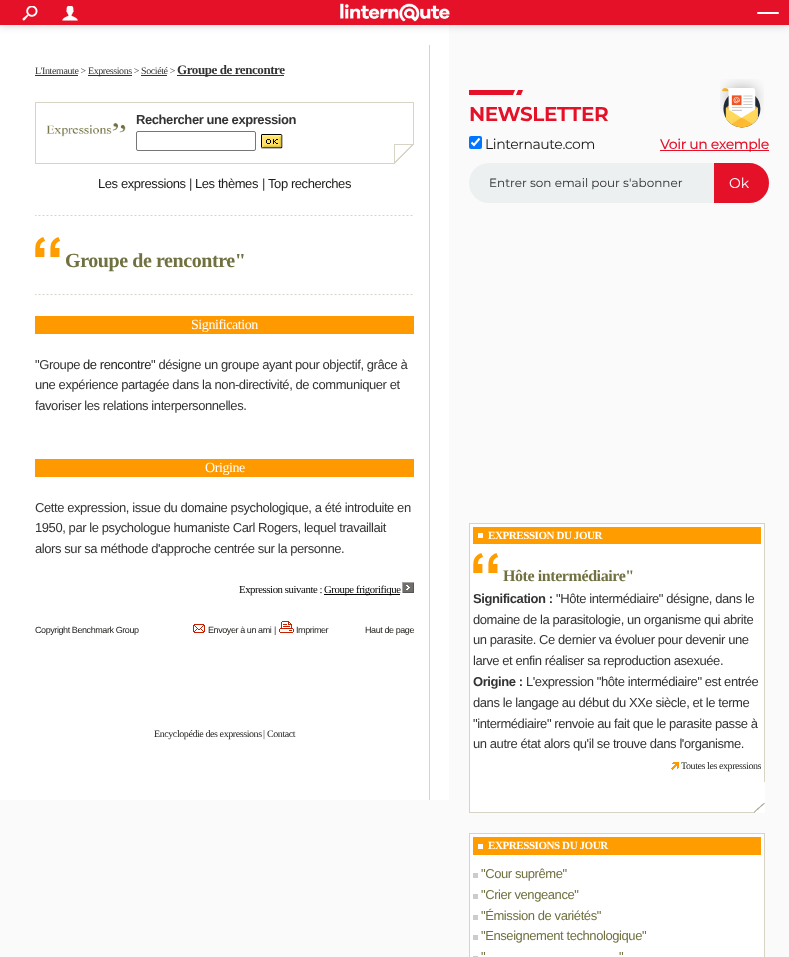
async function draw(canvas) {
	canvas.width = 789;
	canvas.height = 957;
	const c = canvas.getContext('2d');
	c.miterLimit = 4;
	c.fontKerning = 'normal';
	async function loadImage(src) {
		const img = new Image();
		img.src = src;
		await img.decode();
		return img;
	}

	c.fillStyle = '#fafafa';
	c.fillRect(0, 0, 789, 957);
	c.fillStyle = '#fff';
	c.fillRect(0, 25, 449, 775);
	c.fillStyle = '#00000033';
	c.filter = 'blur(4px)';
	c.beginPath();
	c.rect(0, 0, 789, 25);
	c.fill();
	c.filter = 'none';
	c.fillStyle = '#e41129';
	c.fillRect(0, 0, 789, 25);
	c.drawImage(await loadImage('img1.png'), 22, 6, 16, 15);
	c.drawImage(await loadImage('img2.png'), 62, 6, 16, 15);
	c.drawImage(await loadImage('img3.png'), 340, 3, 110, 19);
	c.fillStyle = '#fff';
	c.beginPath();
	c.roundRect(757, 12, 22, 2, 1);
	c.fill();
	c.fillStyle = '#d7d4c6';
	c.fillRect(429, 45, 1, 755);
	c.letterSpacing = '-0.42px';
	c.font = '10px Liberation Serif';
	c.fillStyle = '#333';
	c.fillText('L\'Internaute >', 35, 74);
	c.fillRect(35, 75, 43, 1);
	c.fillRect(88, 75, 44, 1);
	c.fillText('Expressions > Société >', 88, 74);
	c.fillRect(177, 75, 107, 1);
	c.font = 'bold 13px Liberation Serif';
	c.fillText('Groupe de rencontre', 177, 74);
	for (const [x, y, w, h, color] of [
		[141, 75, 26, 1, '#333'],
		[35, 102, 379, 1, '#d7d4c6'],
		[35, 163, 359, 1, '#d7d4c6'],
		[35, 102, 1, 62, '#d7d4c6'],
	]) {
		c.fillStyle = color;
		c.fillRect(x, y, w, h);
	}
	c.font = 'bold 13px Liberation Sans';
	c.fillStyle = '#333';
	c.fillText('Rechercher une expression', 136, 124);
	c.beginPath();
	c.roundRect(136.5, 131.5, 119, 19, 1.5);
	c.strokeStyle = '#767676';
	c.stroke();
	c.drawImage(await loadImage('img4.png'), 261, 134, 22, 15);
	c.drawImage(await loadImage('img5.png'), 46, 123, 80, 14);
	c.fillStyle = '#d7d4c6';
	c.fillRect(413, 102, 1, 42);
	c.fillRect(394, 144, 20, 20);
	c.drawImage(await loadImage('img6.png'), 395, 145, 19, 19);
	c.font = '13px Liberation Sans';
	c.fillStyle = '#1d1d1b';
	c.fillText('Les expressions', 98, 188);
	c.fillStyle = '#333';
	c.fillText('|', 189, 188);
	c.fillStyle = '#1d1d1b';
	c.fillText('Les thèmes', 195, 188);
	c.fillStyle = '#333';
	c.fillText('|', 262, 188);
	c.fillStyle = '#1d1d1b';
	c.fillText('Top recherches', 268, 188);
	c.fillStyle = '#d7d4c6';
	c.fillRect(35, 215, 379, 1);
	c.drawImage(await loadImage('img7.png'), 36, 215, 378, 1);
	c.drawImage(await loadImage('img8.png'), 35, 237, 25, 20);
	c.font = 'bold 20px Liberation Serif';
	c.fillStyle = '#707041';
	c.fillText('Groupe de rencontre"', 65, 267);
	c.fillStyle = '#d7d4c6';
	c.fillRect(35, 294, 379, 1);
	c.drawImage(await loadImage('img7.png'), 36, 294, 378, 1);
	c.fillStyle = '#f90';
	c.fillRect(35, 316, 379, 18);
	c.font = '14px Liberation Serif';
	c.fillStyle = '#fff';
	c.fillText('Signification', 191, 329);
	c.font = '13px Liberation Sans';
	c.fillStyle = '#333';
	c.fillText('"Groupe', 35, 369);
	c.fillStyle = '#1d1d1b';
	c.fillText('de rencontre', 83, 369);
	c.fillStyle = '#333';
	for (const [text, x, y] of [
		['" désigne un groupe ayant pour objectif, grâce à', 151, 369],
		['une expérience partagée dans la non-directivité, de communiquer et', 35, 389],
		['favoriser les relations interpersonnelles.', 35, 410],
	]) {
		c.fillText(text, x, y);
	}
	c.fillStyle = '#f90';
	c.fillRect(35, 459, 379, 18);
	c.font = '14px Liberation Serif';
	c.fillStyle = '#fff';
	c.fillText('Origine', 205, 472);
	c.font = '13px Liberation Sans';
	c.fillStyle = '#333';
	for (const [text, x, y] of [
		['Cette expression, issue du domaine psychologique, a été introduite en', 35, 512],
		['1950, par le psychologue humaniste Carl Rogers, lequel travaillait', 35, 532],
		['alors sur sa méthode d\'approche centrée sur la personne.', 35, 553],
	]) {
		c.fillText(text, x, y);
	}
	c.font = '10.75px Liberation Serif';
	c.fillStyle = '#000';
	c.fillText('Expression suivante :', 239, 593);
	c.fillRect(324, 594, 76, 1);
	c.fillText('Groupe frigorifique', 324, 593);
	c.drawImage(await loadImage('img9.png'), 402, 582, 12, 11);
	c.font = '9px Liberation Sans';
	c.fillStyle = '#1d1d1b';
	c.fillText('Copyright Benchmark Group', 35, 633);
	c.drawImage(await loadImage('img10.png'), 193, 624, 12, 9);
	c.fillText('Envoyer à un ami', 208, 633);
	c.fillStyle = '#333';
	c.fillText('|', 274, 633);
	c.drawImage(await loadImage('img11.png'), 279, 621, 15, 12);
	c.fillStyle = '#1d1d1b';
	c.fillText('Imprimer', 296, 633);
	c.fillText('Haut de page', 365, 633);
	c.font = '10px Liberation Serif';
	c.fillText('Encyclopédie des expressions', 154, 737);
	c.fillStyle = '#333';
	c.fillText('|', 263, 737);
	c.fillStyle = '#1d1d1b';
	c.fillText('Contact', 267, 737);
	c.fillStyle = '#e41129';
	c.fillRect(469, 90, 50, 5);
	c.fillStyle = '#fff';
	c.beginPath();
	c.moveTo(515, 90);
	c.lineTo(523, 90);
	c.lineTo(521, 95);
	c.lineTo(513, 95);
	c.closePath();
	c.fill();
	c.fillStyle = '#e41129';
	c.beginPath();
	c.moveTo(518, 90);
	c.lineTo(523, 90);
	c.lineTo(521, 95);
	c.lineTo(516, 95);
	c.closePath();
	c.fill();
	c.font = 'bold 20px Montserrat';
	c.fillText('NEWSLETTER', 469, 121);
	c.drawImage(await loadImage('img12.png'), 720, 79, 44, 49);
	c.fillStyle = '#0075ff';
	c.beginPath();
	c.roundRect(469, 136, 13, 13, 2);
	c.fill();
	c.beginPath();
	c.moveTo(471.5, 142.5);
	c.lineTo(474, 145);
	c.lineTo(479.5, 138.5);
	c.strokeStyle = '#fff';
	c.lineWidth = 2.1;
	c.stroke();
	c.font = '14px Montserrat';
	c.fillStyle = '#1d1d1b';
	c.fillText('Linternaute.com', 485, 149);
	c.fillStyle = '#e41129';
	c.fillRect(660, 150, 109, 1);
	c.font = '500 14px Montserrat';
	c.fillText('Voir un exemple', 660, 149);
	c.fillStyle = '#edf0f0';
	c.beginPath();
	c.roundRect(469, 163, 300, 40, 20);
	c.fill();
	c.letterSpacing = '0px';
	c.font = '12px Montserrat';
	c.fillStyle = '#333';
	c.fillText('Entrer son email pour s\'abonner', 489, 187);
	c.fillStyle = '#e41129';
	c.beginPath();
	c.roundRect(715, 164, 53, 38, [0, 19, 19, 0]);
	c.fill();
	c.strokeStyle = '#e41129';
	c.lineWidth = 2;
	c.stroke();
	c.font = '14px Montserrat';
	c.fillStyle = '#fff';
	c.fillText('Ok', 729, 188);
	for (const [x, y, w, h, color] of [
		[470, 524, 295, 288, '#fff'],
		[469, 523, 296, 1, '#d7d4c6'],
		[764, 523, 1, 259, '#d7d4c6'],
		[469, 523, 1, 259, '#d7d4c6'],
		[473, 527, 288, 17, '#ff9c00'],
		[478, 533, 5, 5, '#fff'],
	]) {
		c.fillStyle = color;
		c.fillRect(x, y, w, h);
	}
	c.letterSpacing = '-0.42px';
	c.font = 'bold 11px Liberation Serif';
	c.fillText('EXPRESSION DU JOUR', 488, 539);
	c.drawImage(await loadImage('img8.png'), 473, 553, 25, 20);
	c.font = 'bold 16px Liberation Serif';
	c.fillStyle = '#707041';
	c.fillText('Hôte intermédiaire"', 503, 581);
	c.font = 'bold 13px Liberation Sans';
	c.fillStyle = '#333';
	c.fillText('Signification :', 473, 603);
	c.font = '13px Liberation Sans';
	for (const [text, x, y] of [
		['"Hôte intermédiaire" désigne, dans le', 556, 603],
		['domaine de la parasitologie, un organisme qui abrite', 473, 624],
		['un parasite. Ce dernier va évoluer pour devenir une', 473, 644],
		['larve et enfin réaliser sa reproduction asexuée.', 473, 665],
	]) {
		c.fillText(text, x, y);
	}
	c.font = 'bold 13px Liberation Sans';
	c.fillText('Origine :', 473, 686);
	c.font = '13px Liberation Sans';
	for (const [text, x, y] of [
		['L\'expression "hôte intermédiaire" est entrée', 526, 686],
		['dans le langage au début du XXe siècle, et le terme', 473, 707],
		['"intermédiaire" renvoie au fait que le parasite passe à', 473, 728],
		['un autre état alors qu\'il se trouve dans l\'organisme.', 473, 748],
	]) {
		c.fillText(text, x, y);
	}
	c.drawImage(await loadImage('img13.png'), 671, 762, 8, 8);
	c.font = '10px Liberation Serif';
	c.fillStyle = '#1d1d1b';
	c.fillText('Toutes les expressions', 681, 769);
	c.fillStyle = '#d7d4c6';
	c.fillRect(469, 812, 285, 1);
	c.fillRect(469, 782, 1, 31);
	c.drawImage(await loadImage('img14.png'), 754, 803, 11, 10);
	for (const [x, y, w, h, color] of [
		[470, 834, 294, 123, '#fff'],
		[469, 833, 296, 1, '#d7d4c6'],
		[764, 833, 1, 124, '#d7d4c6'],
		[469, 833, 1, 124, '#d7d4c6'],
		[473, 837, 288, 18, '#ff9c00'],
		[478, 844, 5, 5, '#fff'],
	]) {
		c.fillStyle = color;
		c.fillRect(x, y, w, h);
	}
	c.font = 'bold 11px Liberation Serif';
	c.fillText('EXPRESSIONS DU JOUR', 488, 849);
	c.fillStyle = '#ccc';
	c.fillRect(473, 873, 5, 5);
	c.font = '13px Liberation Sans';
	c.fillStyle = '#707041';
	c.fillText('"Cour suprême"', 481, 878);
	c.fillStyle = '#ccc';
	c.fillRect(473, 894, 5, 5);
	c.fillStyle = '#707041';
	c.fillText('"Crier vengeance"', 481, 899);
	c.fillStyle = '#ccc';
	c.fillRect(473, 915, 5, 5);
	c.fillStyle = '#707041';
	c.fillText('"Émission de variétés"', 481, 920);
	c.fillStyle = '#ccc';
	c.fillRect(473, 935, 5, 5);
	c.fillStyle = '#707041';
	for (const [text, x, y] of [
		['"Enseignement technologique"', 481, 940],
		['"', 481, 961],
		['"', 619, 961],
	]) {
		c.fillText(text, x, y);
	}
	c.fillStyle = '#ccc';
	c.fillRect(473, 956, 5, 1);
}

draw(document.querySelector('canvas'));
